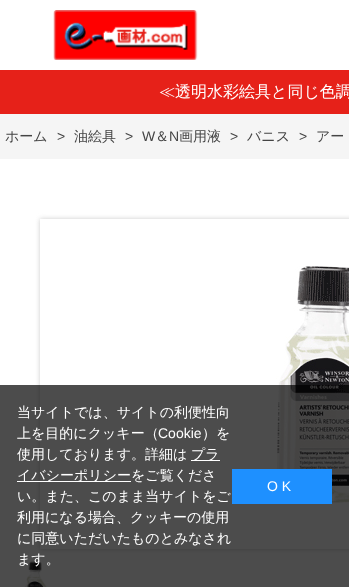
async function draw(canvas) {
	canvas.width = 349;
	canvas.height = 587;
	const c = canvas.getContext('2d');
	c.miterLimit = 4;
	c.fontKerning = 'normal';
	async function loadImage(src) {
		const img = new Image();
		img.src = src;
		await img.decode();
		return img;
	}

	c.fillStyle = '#fff';
	c.fillRect(0, 0, 349, 587);
	c.drawImage(await loadImage('img1.png'), 53, 10, 145, 50);
	c.fillStyle = '#e62119';
	c.fillRect(0, 70, 349, 44);
	c.font = '500 16px WenQuanYi Zen Hei';
	c.fillStyle = '#fff';
	c.fillText('≪透明水彩絵具と同じ色調', 159, 97);
	c.fillStyle = '#f5f5f5';
	c.fillRect(0, 114, 349, 45);
	c.font = '500 14px WenQuanYi Zen Hei';
	c.fillStyle = '#444';
	c.fillText('ホーム', 5, 141);
	c.font = '14px Liberation Sans';
	c.fillText('>', 57, 141);
	c.font = '500 14px WenQuanYi Zen Hei';
	c.fillText('油絵具', 74, 141);
	c.font = '14px Liberation Sans';
	c.fillText('>', 125, 141);
	c.fillText('W', 142, 141);
	c.font = '500 14px WenQuanYi Zen Hei';
	c.fillText('＆', 155, 141);
	c.font = '14px Liberation Sans';
	c.fillText('N', 169, 141);
	c.font = '500 14px WenQuanYi Zen Hei';
	c.fillText('画用液', 179, 141);
	c.font = '14px Liberation Sans';
	c.fillText('>', 230, 141);
	c.font = '500 14px WenQuanYi Zen Hei';
	c.fillText('バニス', 247, 141);
	c.font = '14px Liberation Sans';
	c.fillText('>', 299, 141);
	c.font = '500 14px WenQuanYi Zen Hei';
	c.fillText('アー', 316, 141);
	c.save();
	c.beginPath();
	c.moveTo(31, 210);
	c.lineTo(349, 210);
	c.lineTo(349, 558);
	c.lineTo(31, 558);
	c.closePath();
	c.moveTo(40, 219);
	c.lineTo(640, 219);
	c.lineTo(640, 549);
	c.lineTo(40, 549);
	c.closePath();
	c.clip('evenodd');
	c.fillStyle = '#ccc';
	c.filter = 'blur(2.5px)';
	c.beginPath();
	c.rect(40, 219, 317, 330);
	c.fill();
	c.filter = 'none';
	c.restore();
	c.drawImage(await loadImage('img2.png'), 276, 266, 73, 237);
	c.drawImage(await loadImage('img3.png'), 25, 561, 22, 26);
	c.fillStyle = '#000000b3';
	c.fillRect(0, 385, 349, 202);
	c.fillStyle = '#fff';
	c.fillText('当サイトでは、サイトの利便性向', 17, 417);
	c.fillText('上を目的にクッキー（', 17, 438);
	c.font = '14px Liberation Sans';
	c.fillText('Cookie', 158, 438);
	c.font = '500 14px WenQuanYi Zen Hei';
	c.fillText('）を', 202, 438);
	c.fillText('使用しております。詳細は', 17, 459);
	c.fillRect(191, 460, 29, 1);
	c.fillText('プラ', 191, 459);
	c.fillRect(17, 481, 114, 1);
	for (const [text, x, y] of [
		['イバシーポリシーをご覧くださ', 17, 480],
		['い。また、このまま当サイトをご', 17, 501],
		['利用になる場合、クッキーの使用', 17, 522],
		['に同意いただいたものとみなされ', 17, 543],
		['ます。', 17, 564],
	]) {
		c.fillText(text, x, y);
	}
	c.fillStyle = '#1e90ff';
	c.fillRect(232, 469, 100, 35);
	c.font = '14px Liberation Sans';
	c.fillStyle = '#fff';
	c.fillText('O K', 267, 491);
}

draw(document.querySelector('canvas'));
